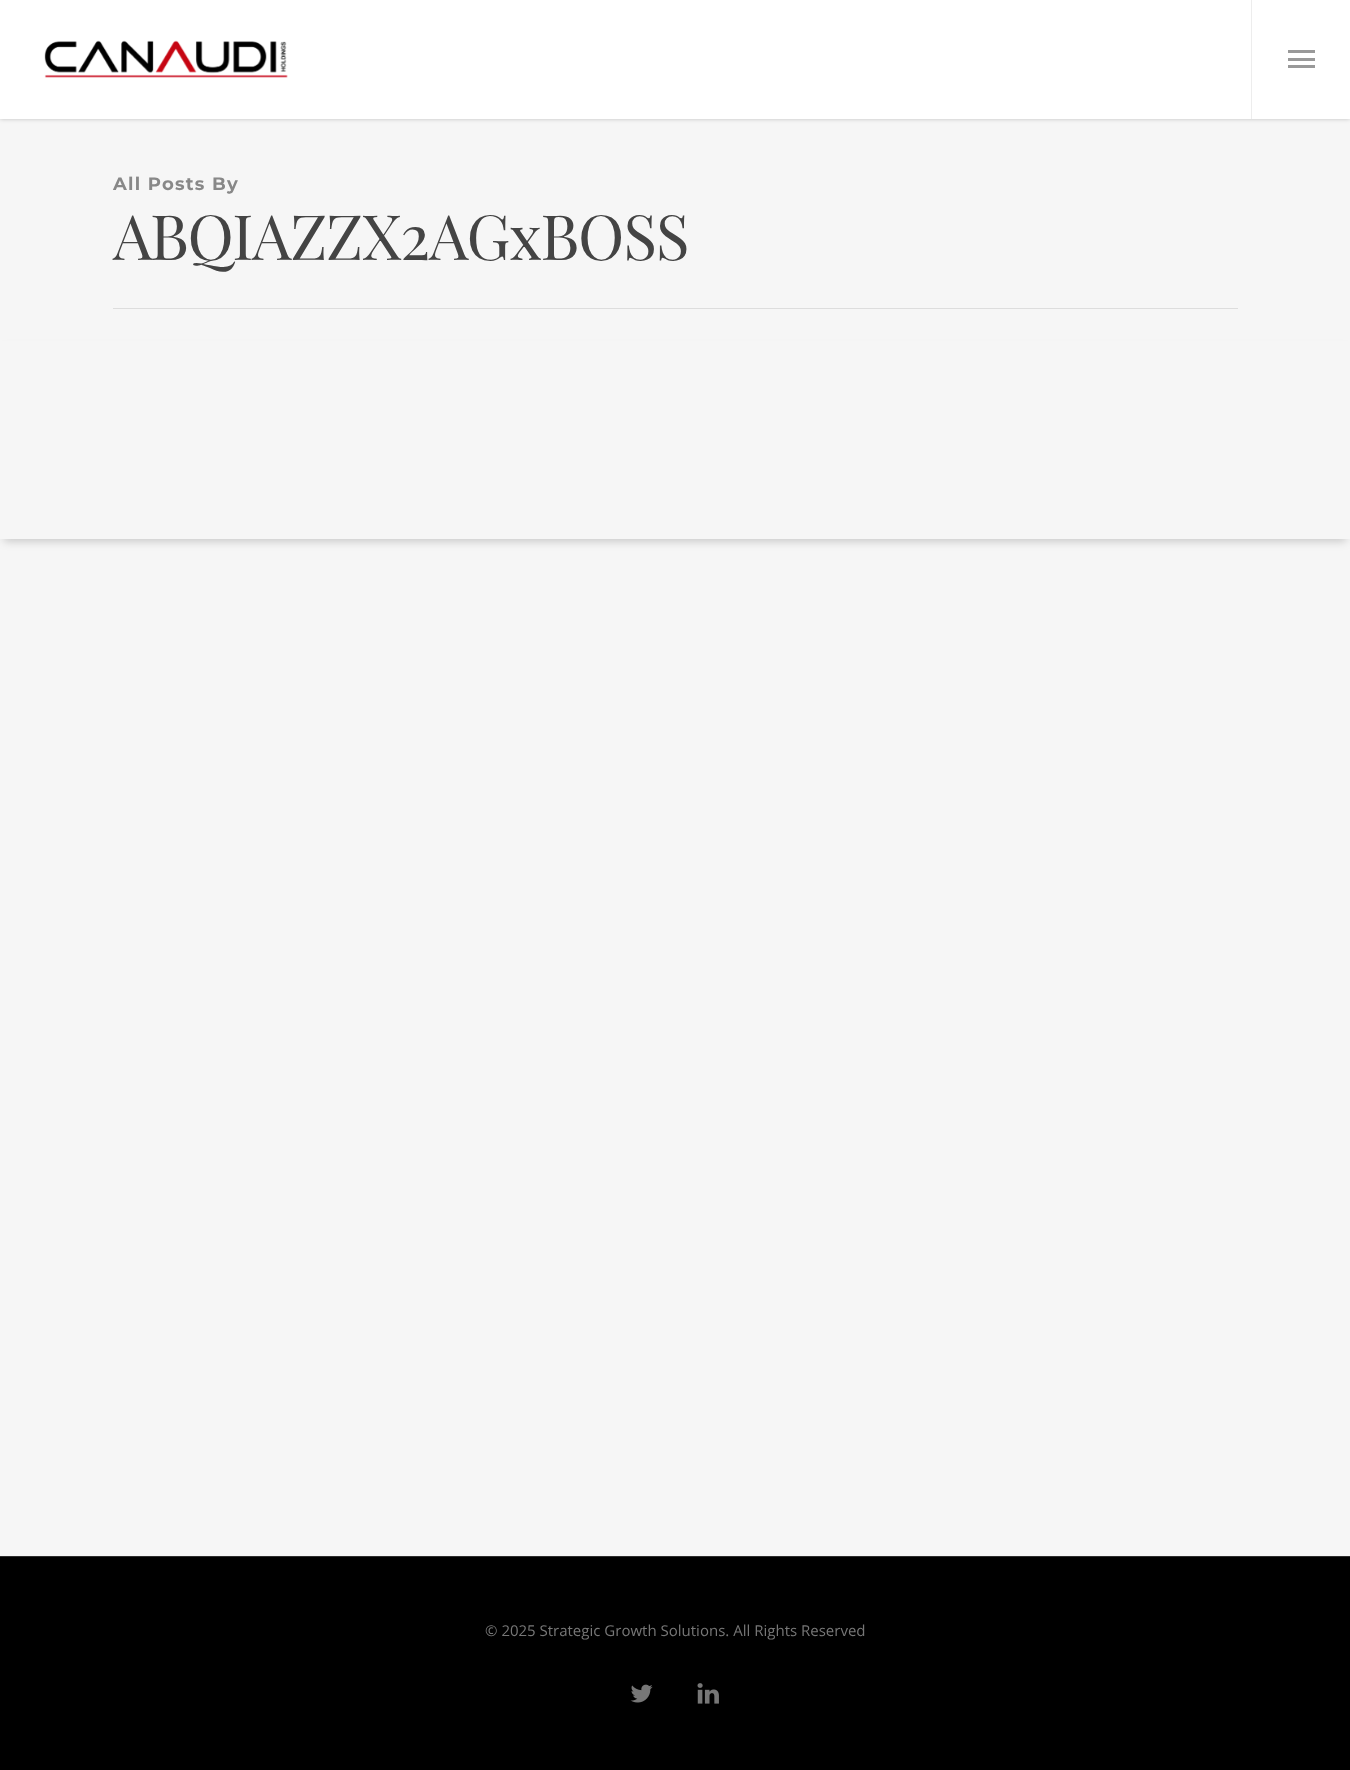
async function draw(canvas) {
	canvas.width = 1350;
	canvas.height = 1770;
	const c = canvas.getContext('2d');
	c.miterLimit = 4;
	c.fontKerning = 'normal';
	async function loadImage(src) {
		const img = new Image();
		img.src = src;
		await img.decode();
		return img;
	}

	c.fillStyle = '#f6f6f6';
	c.fillRect(0, 0, 1350, 1770);
	c.fillStyle = '#00000038';
	c.filter = 'blur(2px)';
	c.beginPath();
	c.rect(0, 0, 1350, 119);
	c.fill();
	c.filter = 'none';
	c.fillStyle = '#fff';
	c.fillRect(0, 0, 1350, 119);
	c.drawImage(await loadImage('img1.png'), 44, 40, 244, 38);
	for (const [x, y, w, h, color] of [
		[1251, 0, 1, 119, '#ededed'],
		[1288, 50, 27, 3, '#999'],
		[1288, 65, 27, 3, '#999'],
		[1288, 58, 27, 3, '#999'],
		[113, 308, 1125, 1, '#ddd'],
	]) {
		c.fillStyle = color;
		c.fillRect(x, y, w, h);
	}
	c.letterSpacing = '1.25px';
	c.font = '100 18px Montserrat';
	c.fillStyle = '#888';
	c.fillText('All Posts By', 113, 190);
	c.letterSpacing = '-1.25px';
	c.font = '62.5px Playfair Display';
	c.fillStyle = '#444';
	c.fillText('ABQIAZZX2AGxBOSS', 113, 260);
	c.fillStyle = '#00000033';
	c.filter = 'blur(5px)';
	c.beginPath();
	c.rect(4, 349, 1342, 192);
	c.fill();
	c.filter = 'none';
	for (const [x, y, w, h, color] of [
		[0, 341, 1350, 198, '#f6f6f6'],
		[0, 1557, 1350, 213, '#000'],
		[0, 1556, 1350, 1, '#2e2e2e'],
	]) {
		c.fillStyle = color;
		c.fillRect(x, y, w, h);
	}
	c.letterSpacing = '0px';
	c.font = '15px Open Sans';
	c.fillStyle = '#777';
	c.fillText('© 2025 Strategic Growth Solutions. All Rights Reserved', 485, 1636);
	c.drawImage(await loadImage('img2.png'), 630, 1684, 23, 19);
	c.drawImage(await loadImage('img3.png'), 697, 1683, 22, 21);
}

draw(document.querySelector('canvas'));
